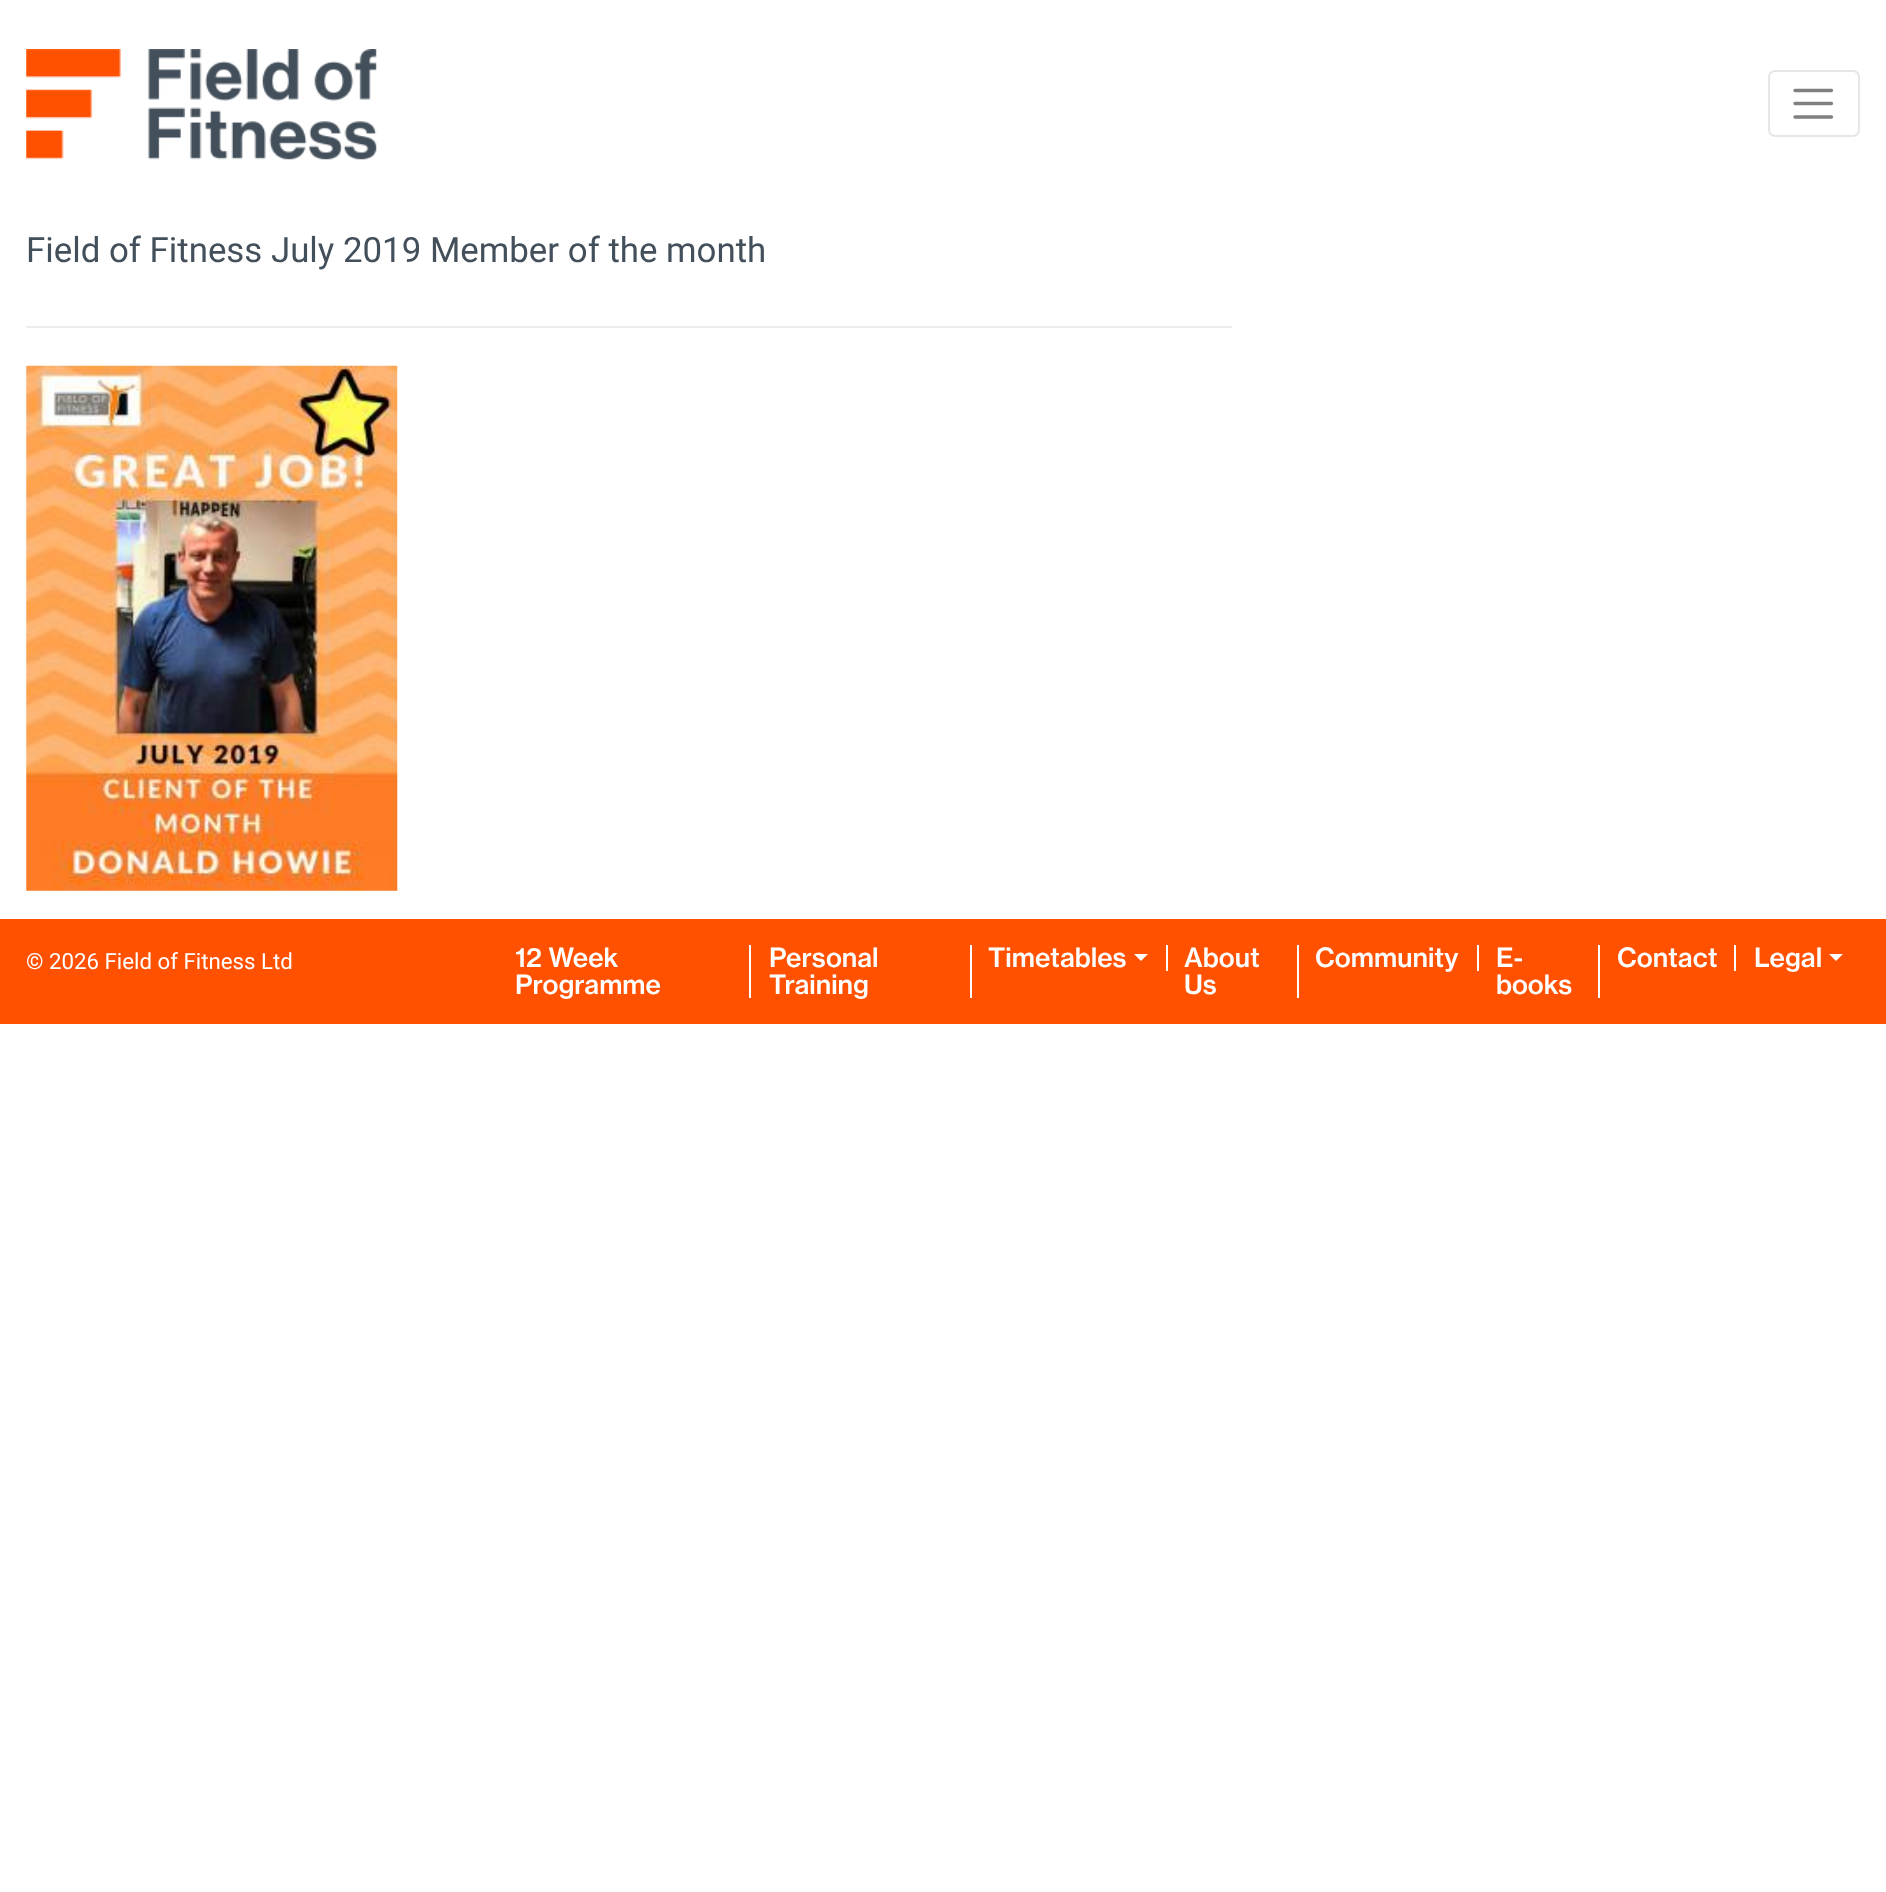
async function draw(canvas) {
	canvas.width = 1886;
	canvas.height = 1892;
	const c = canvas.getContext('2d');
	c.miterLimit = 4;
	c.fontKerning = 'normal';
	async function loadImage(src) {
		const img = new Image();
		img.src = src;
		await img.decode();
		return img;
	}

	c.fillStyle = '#fff';
	c.fillRect(0, 0, 1886, 1892);
	c.drawImage(await loadImage('img1.png'), 26, 49, 351, 111);
	c.beginPath();
	c.roundRect(1769, 71, 90, 65, 6);
	c.strokeStyle = '#e6e6e6';
	c.lineWidth = 2;
	c.stroke();
	c.beginPath();
	c.moveTo(1795, 90.5);
	c.lineTo(1831.5, 90.5);
	c.moveTo(1795, 103.5);
	c.lineTo(1831.5, 103.5);
	c.moveTo(1795, 117);
	c.lineTo(1831.5, 117);
	c.strokeStyle = '#808080';
	c.lineWidth = 3.3;
	c.lineCap = 'round';
	c.stroke();
	c.fillStyle = '#eaecef';
	c.fillRect(26, 326, 1206, 2);
	c.font = '34.85px Roboto';
	c.fillStyle = '#434f5a';
	c.fillText('Field of Fitness July 2019 Member of the month', 26, 262);
	c.drawImage(await loadImage('img2.png'), 26, 365, 372, 526);
	c.fillStyle = '#ff5100';
	c.fillRect(0, 919, 1886, 105);
	c.font = '22.25px Roboto';
	c.fillStyle = '#fff';
	c.fillText('© 2026 Field of Fitness Ltd', 26, 969);
	c.fillRect(749, 945, 2, 53);
	c.font = '500 26.25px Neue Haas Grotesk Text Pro';
	c.fillText('12 Week', 515, 967);
	c.fillText('Programme', 515, 994);
	c.fillRect(970, 945, 2, 53);
	c.fillText('Personal', 769, 967);
	c.fillText('Training', 769, 994);
	c.fillRect(1166, 945, 2, 26);
	c.fillText('Timetables', 988, 967);
	c.beginPath();
	c.moveTo(1134, 954);
	c.lineTo(1148, 954);
	c.lineTo(1141, 961);
	c.closePath();
	c.fill();
	c.fillRect(1297, 945, 2, 53);
	c.fillText('About', 1184, 967);
	c.fillText('Us', 1184, 994);
	c.fillRect(1477, 945, 2, 26);
	c.fillText('Community', 1315, 967);
	c.fillRect(1598, 945, 2, 53);
	c.fillText('E-', 1496, 967);
	c.fillText('books', 1496, 994);
	c.fillRect(1734, 945, 2, 26);
	c.fillText('Contact', 1617, 967);
	c.fillText('Legal', 1754, 967);
	c.beginPath();
	c.moveTo(1829, 954);
	c.lineTo(1843, 954);
	c.lineTo(1836, 961);
	c.closePath();
	c.fill();
}

draw(document.querySelector('canvas'));
